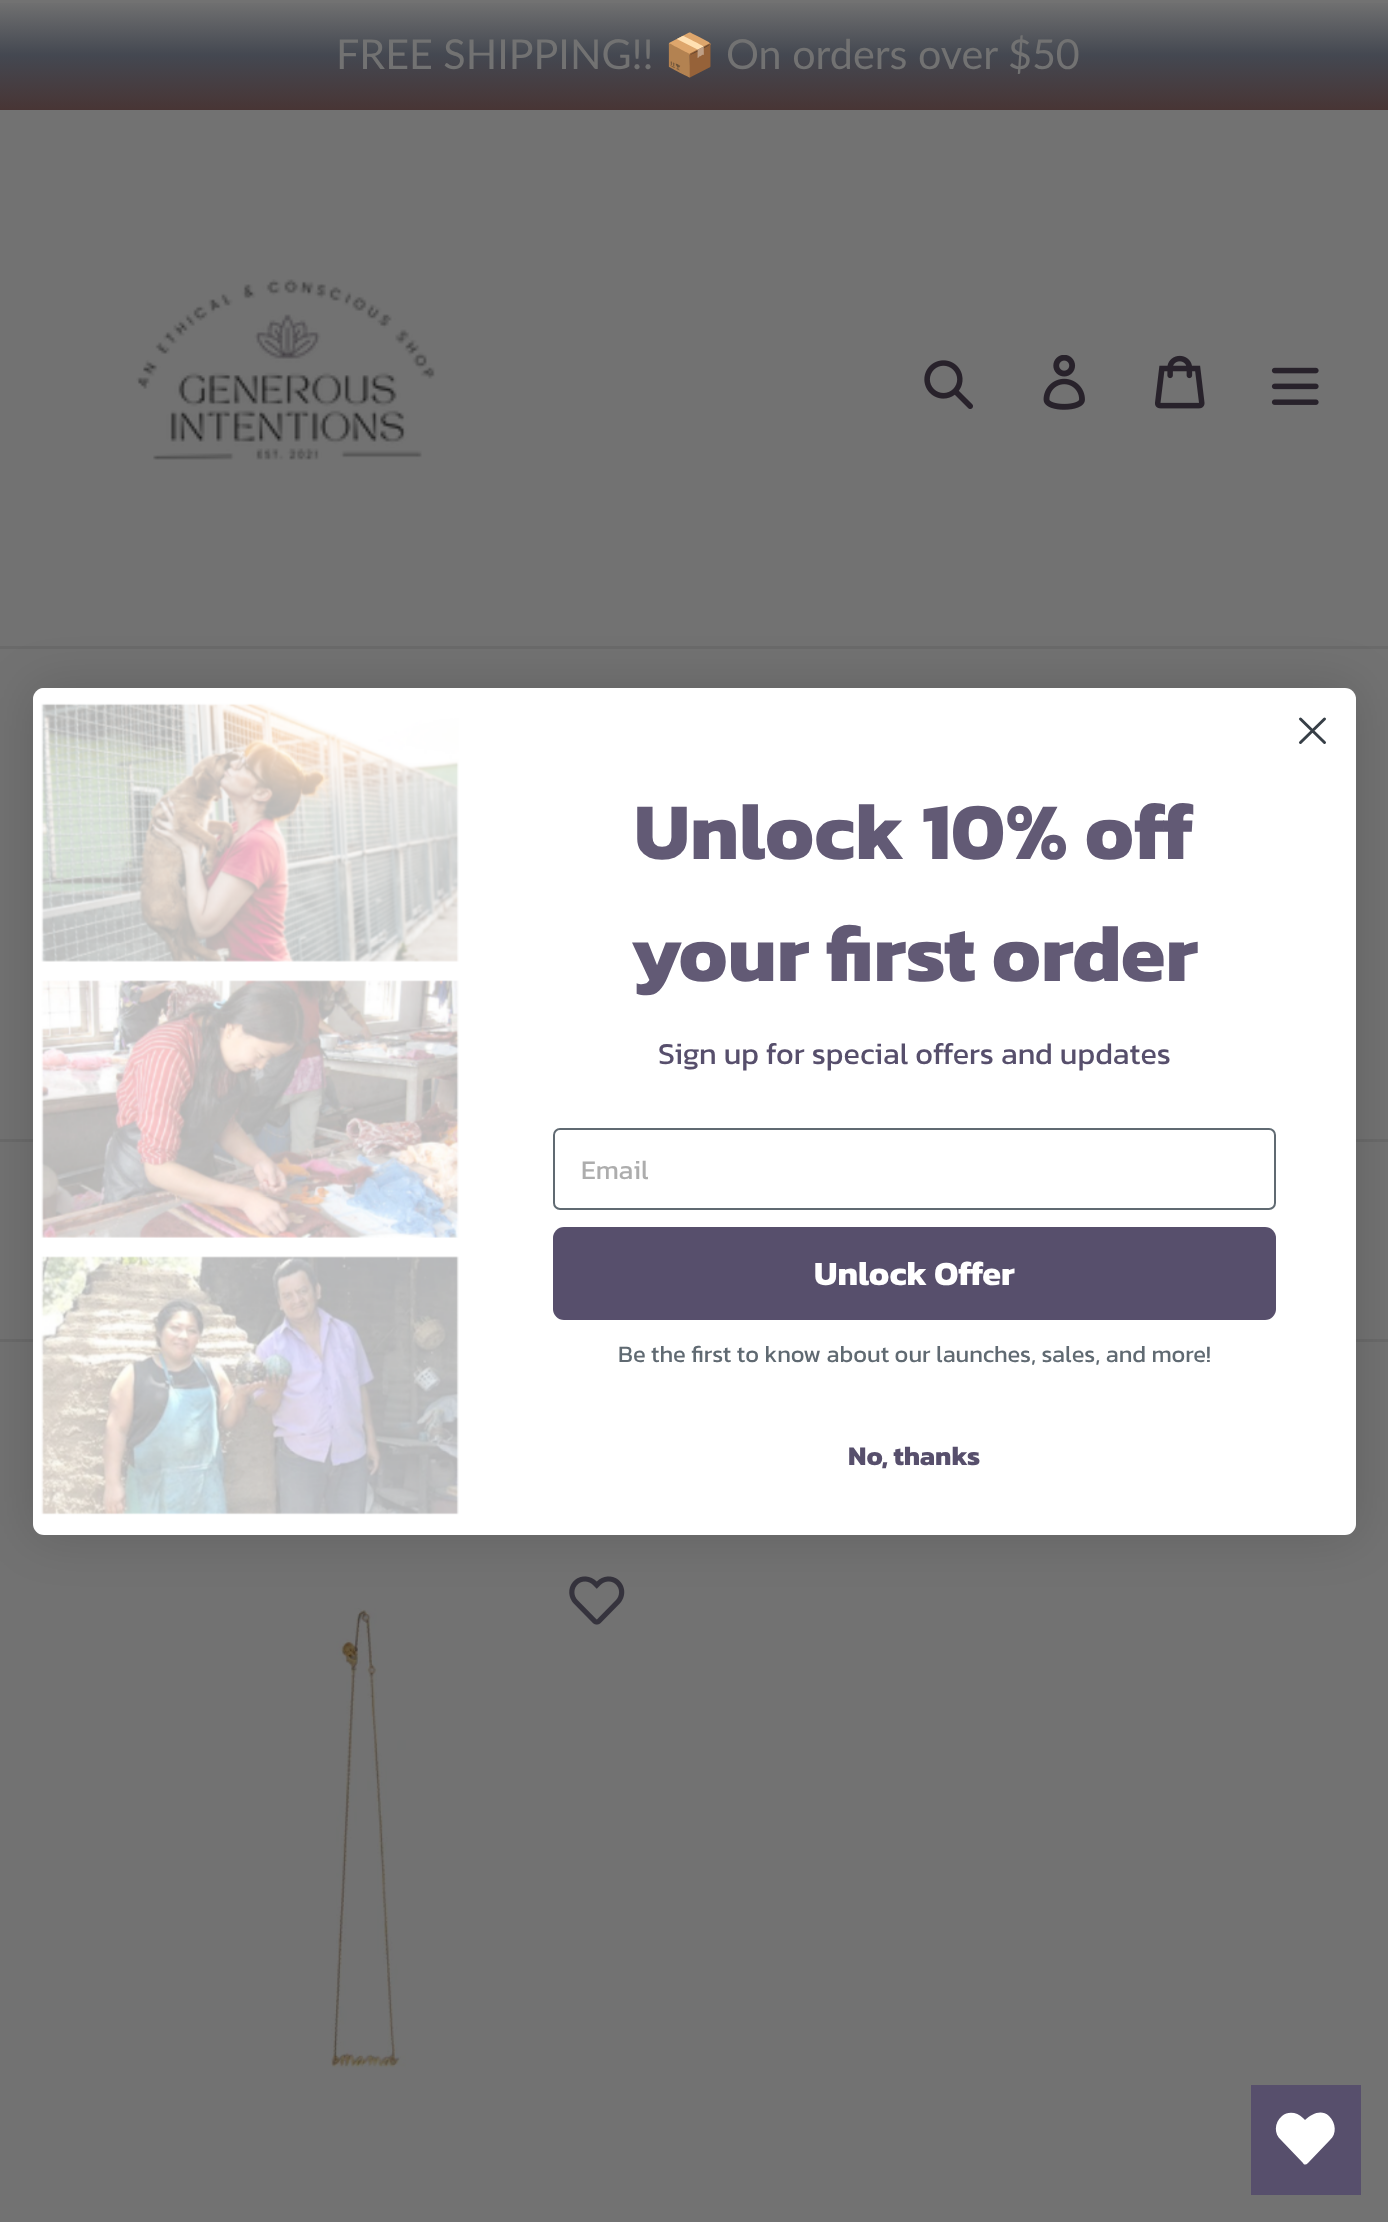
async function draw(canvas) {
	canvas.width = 1388;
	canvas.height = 2222;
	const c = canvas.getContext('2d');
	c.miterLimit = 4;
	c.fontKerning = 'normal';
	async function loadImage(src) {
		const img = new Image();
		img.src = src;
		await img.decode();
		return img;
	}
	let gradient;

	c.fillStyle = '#727272';
	c.fillRect(0, 0, 1388, 2222);
	gradient = c.createLinearGradient(694, 0, 694, 110);
	gradient.addColorStop(0, '#727272');
	gradient.addColorStop(0.5, '#444851');
	gradient.addColorStop(1, '#483535');
	c.fillStyle = gradient;
	c.fillRect(0, 3, 1388, 107);
	c.font = '41.25px Lato';
	c.fillStyle = '#727272';
	c.fillText('FREE SHIPPING!!', 336, 69);
	c.font = '41.25px Noto Color Emoji';
	c.fillText('📦', 664, 69);
	c.font = '41.25px Lato';
	c.fillText('On orders over $50', 726, 69);
	c.fillStyle = '#6a6a6a';
	c.fillRect(0, 646, 1388, 3);
	c.drawImage(await loadImage('img1.png'), 136, 279, 299, 181);
	c.drawImage(await loadImage('img2.png'), 924, 360, 49, 49);
	c.drawImage(await loadImage('img3.png'), 1043, 355, 42, 55);
	c.drawImage(await loadImage('img4.png'), 1155, 355, 50, 54);
	c.drawImage(await loadImage('img5.png'), 1271, 367, 48, 38);
	c.fillRect(0, 1139, 1388, 3);
	c.fillRect(0, 1339, 1388, 3);
	c.drawImage(await loadImage('img7.png'), 569, 1576, 56, 49);
	c.drawImage(await loadImage('img8.png'), 331, 1608, 75, 460);
	c.fillStyle = '#00000026';
	c.filter = 'blur(25.5px)';
	c.beginPath();
	c.roundRect(33, 688, 1323, 847, 11);
	c.fill();
	c.filter = 'none';
	c.fillStyle = '#fff';
	c.beginPath();
	c.roundRect(33, 688, 1323, 847, 11);
	c.fill();
	c.beginPath();
	c.moveTo(1300.5, 719);
	c.lineTo(1324.5, 742.5);
	c.moveTo(1300.5, 742.5);
	c.lineTo(1324.5, 719);
	c.closePath();
	c.strokeStyle = '#373f47';
	c.lineWidth = 3;
	c.lineCap = 'round';
	c.lineJoin = 'round';
	c.stroke();
	c.drawImage(await loadImage('img6.png'), 38, 688, 421, 827);
	c.font = 'bold 81.25px Kanit';
	c.fillStyle = '#625a75';
	c.fillText('Unlock 10% off', 634, 859);
	c.fillText('your first order', 630, 981);
	c.font = '30.5px Kanit';
	c.fillStyle = '#574f6c';
	c.fillText('Sign up for special offers and updates', 658, 1064);
	c.beginPath();
	c.roundRect(554, 1129, 721, 80, 6);
	c.strokeStyle = '#606a72';
	c.lineWidth = 2;
	c.lineJoin = 'miter';
	c.stroke();
	c.font = '27px Kanit';
	c.fillStyle = '#adadad';
	c.fillText('Email', 581, 1179);
	c.fillStyle = '#574f6c';
	c.beginPath();
	c.roundRect(553, 1227, 723, 93, 11);
	c.fill();
	c.font = 'bold 34px Kanit';
	c.fillStyle = '#fff';
	c.fillText('Unlock Offer', 814, 1285);
	c.font = '23.7px Kanit';
	c.fillStyle = '#606a72';
	c.fillText('Be the first to know about our launches, sales, and more!', 618, 1362);
	c.font = 'bold 27px Kanit';
	c.fillStyle = '#574f6c';
	c.fillText('No, thanks', 848, 1465);
	c.fillRect(1251, 2085, 110, 110);
	c.fillStyle = '#fff';
	c.beginPath();
	c.moveTo(1329, 2116);
	c.bezierCurveTo(1321, 2109, 1312, 2114, 1305, 2120);
	c.lineTo(1303, 2118);
	c.bezierCurveTo(1297, 2112, 1288, 2111, 1282, 2116);
	c.bezierCurveTo(1274, 2123, 1274, 2134, 1281, 2140);
	c.lineTo(1303, 2163);
	c.bezierCurveTo(1304, 2165, 1306, 2165, 1308, 2163);
	c.lineTo(1330, 2140);
	c.bezierCurveTo(1337, 2134, 1336, 2123, 1329, 2116);
	c.closePath();
	c.fill();
}

draw(document.querySelector('canvas'));
